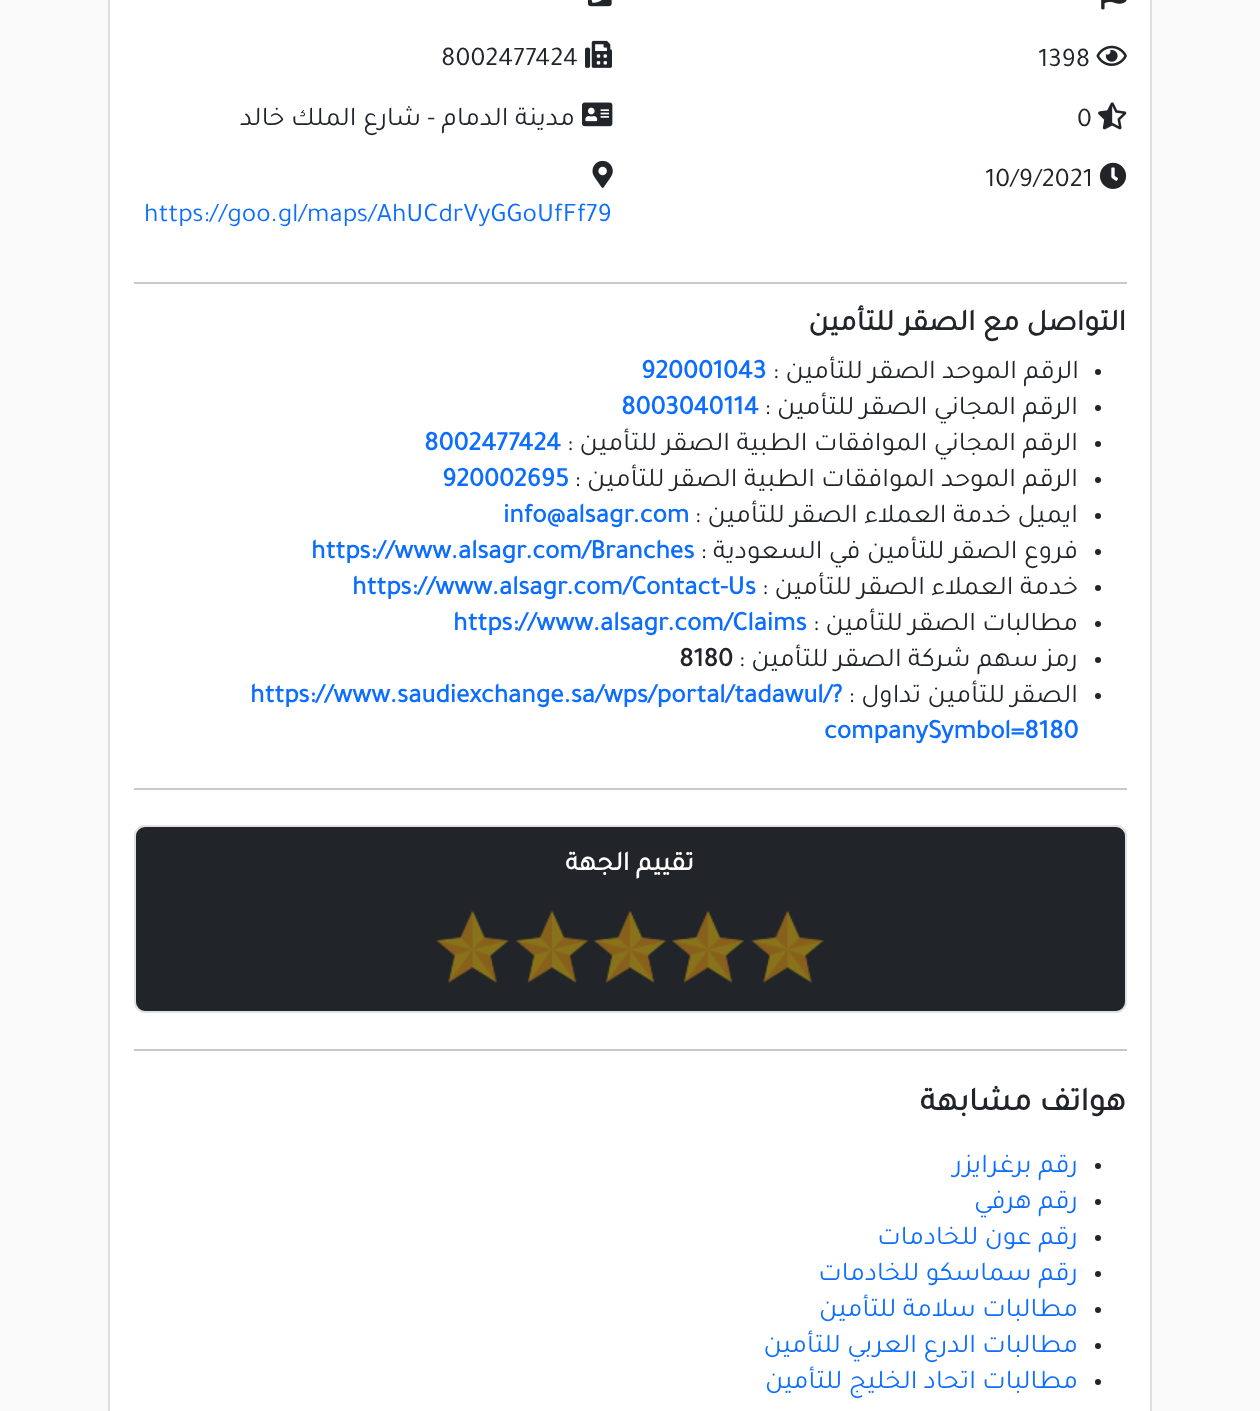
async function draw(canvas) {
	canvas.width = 1260;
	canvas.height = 1411;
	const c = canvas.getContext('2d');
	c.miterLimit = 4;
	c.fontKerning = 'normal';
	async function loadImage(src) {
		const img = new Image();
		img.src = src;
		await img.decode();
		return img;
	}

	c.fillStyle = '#fafafa';
	c.fillRect(0, 0, 1260, 1411);
	c.fillStyle = '#fff';
	c.beginPath();
	c.rect(109, -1, 1042, 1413);
	c.fill();
	c.strokeStyle = '#dfdfdf';
	c.lineWidth = 2;
	c.stroke();
	c.drawImage(await loadImage('img1.png'), 1101, 0, 26, 10);
	c.drawImage(await loadImage('img2.png'), 1096, 45, 31, 21);
	c.font = '27px Tajawal';
	c.fillStyle = '#212529';
	c.fillText('1398', 1038, 66);
	c.drawImage(await loadImage('img3.png'), 1098, 102, 29, 28);
	c.fillText('0', 1077, 126);
	c.drawImage(await loadImage('img4.png'), 1099, 162, 28, 27);
	c.fillText('10/9/2021', 985, 186);
	c.drawImage(await loadImage('img5.png'), 588, 0, 24, 7);
	c.drawImage(await loadImage('img6.png'), 585, 40, 27, 28);
	c.fillText('8002477424', 441, 65);
	c.drawImage(await loadImage('img7.png'), 582, 102, 31, 25);
	c.direction = 'rtl';
	c.fillText('مدينة الدمام - شارع الملك خالد', 575, 125);
	c.drawImage(await loadImage('img8.png'), 592, 160, 21, 28);
	c.direction = 'ltr';
	c.fillStyle = '#0d6efd';
	c.fillText('https://goo.gl/maps/AhUCdrVyGGoUfFf79', 144, 221);
	c.fillStyle = '#c8c9ca';
	c.fillRect(134, 282, 993, 2);
	c.direction = 'rtl';
	c.font = 'bold 30px Tajawal';
	c.fillStyle = '#212529';
	c.fillText('التواصل مع الصقر للتأمين', 1126, 330);
	c.beginPath();
	c.arc(1098, 372, 3, 0, 2 * Math.PI);
	c.fill();
	c.font = '27px Tajawal';
	c.fillText('الرقم الموحد الصقر للتأمين :', 1079, 378);
	c.direction = 'ltr';
	c.font = 'bold 27px Tajawal';
	c.fillStyle = '#0d6efd';
	c.fillText('920001043', 641, 378);
	c.fillStyle = '#212529';
	c.beginPath();
	c.arc(1098, 408, 3, 0, 2 * Math.PI);
	c.fill();
	c.direction = 'rtl';
	c.font = '27px Tajawal';
	c.fillText('الرقم المجاني الصقر للتأمين :', 1078, 414);
	c.direction = 'ltr';
	c.font = 'bold 27px Tajawal';
	c.fillStyle = '#0d6efd';
	c.fillText('8003040114', 621, 414);
	c.fillStyle = '#212529';
	c.beginPath();
	c.arc(1098, 444, 3, 0, 2 * Math.PI);
	c.fill();
	c.direction = 'rtl';
	c.font = '27px Tajawal';
	c.fillText('الرقم المجاني الموافقات الطبية الصقر للتأمين :', 1078, 450);
	c.direction = 'ltr';
	c.font = 'bold 27px Tajawal';
	c.fillStyle = '#0d6efd';
	c.fillText('8002477424', 424, 450);
	c.fillStyle = '#212529';
	c.beginPath();
	c.arc(1098, 480, 3, 0, 2 * Math.PI);
	c.fill();
	c.direction = 'rtl';
	c.font = '27px Tajawal';
	c.fillText('الرقم الموحد الموافقات الطبية الصقر للتأمين :', 1078, 486);
	c.direction = 'ltr';
	c.font = 'bold 27px Tajawal';
	c.fillStyle = '#0d6efd';
	c.fillText('920002695', 442, 486);
	c.fillStyle = '#212529';
	c.beginPath();
	c.arc(1098, 516, 3, 0, 2 * Math.PI);
	c.fill();
	c.direction = 'rtl';
	c.font = '27px Tajawal';
	c.fillText('ايميل خدمة العملاء الصقر للتأمين :', 1078, 522);
	c.direction = 'ltr';
	c.font = 'bold 27px Tajawal';
	c.fillStyle = '#0d6efd';
	c.fillText('info@alsagr.com', 503, 522);
	c.fillStyle = '#212529';
	c.beginPath();
	c.arc(1098, 552, 3, 0, 2 * Math.PI);
	c.fill();
	c.direction = 'rtl';
	c.font = '27px Tajawal';
	c.fillText('فروع الصقر للتأمين في السعودية :', 1078, 558);
	c.direction = 'ltr';
	c.font = 'bold 27px Tajawal';
	c.fillStyle = '#0d6efd';
	c.fillText('https://www.alsagr.com/Branches', 311, 558);
	c.fillStyle = '#212529';
	c.beginPath();
	c.arc(1098, 588, 3, 0, 2 * Math.PI);
	c.fill();
	c.direction = 'rtl';
	c.font = '27px Tajawal';
	c.fillText('خدمة العملاء الصقر للتأمين :', 1078, 594);
	c.direction = 'ltr';
	c.font = 'bold 27px Tajawal';
	c.fillStyle = '#0d6efd';
	c.fillText('https://www.alsagr.com/Contact-Us', 352, 594);
	c.fillStyle = '#212529';
	c.beginPath();
	c.arc(1098, 624, 3, 0, 2 * Math.PI);
	c.fill();
	c.direction = 'rtl';
	c.font = '27px Tajawal';
	c.fillText('مطالبات الصقر للتأمين :', 1078, 630);
	c.direction = 'ltr';
	c.font = 'bold 27px Tajawal';
	c.fillStyle = '#0d6efd';
	c.fillText('https://www.alsagr.com/Claims', 453, 630);
	c.fillStyle = '#212529';
	c.beginPath();
	c.arc(1098, 660, 3, 0, 2 * Math.PI);
	c.fill();
	c.direction = 'rtl';
	c.font = '27px Tajawal';
	c.fillText('رمز سهم شركة الصقر للتأمين :', 1078, 666);
	c.direction = 'ltr';
	c.font = 'bold 27px Tajawal';
	c.fillText('8180', 679, 666);
	c.beginPath();
	c.arc(1098, 696, 3, 0, 2 * Math.PI);
	c.fill();
	c.direction = 'rtl';
	c.font = '27px Tajawal';
	c.fillText('الصقر للتأمين تداول :', 1078, 702);
	c.direction = 'ltr';
	c.font = 'bold 27px Tajawal';
	c.fillStyle = '#0d6efd';
	c.fillText('https://www.saudiexchange.sa/wps/portal/tadawul/?', 250, 702);
	c.fillText('companySymbol=8180', 824, 738);
	c.fillStyle = '#c8c9ca';
	c.fillRect(134, 788, 993, 2);
	c.fillStyle = '#212529';
	c.beginPath();
	c.roundRect(135, 826, 991, 186, 10);
	c.fill();
	c.strokeStyle = '#dee2e6';
	c.stroke();
	c.direction = 'rtl';
	c.fillStyle = '#fff';
	c.fillText('تقييم الجهة', 694, 870);
	c.drawImage(await loadImage('img9.png'), 751, 910, 73, 73);
	c.drawImage(await loadImage('img10.png'), 672, 910, 72, 73);
	c.drawImage(await loadImage('img11.png'), 594, 910, 72, 73);
	c.drawImage(await loadImage('img10.png'), 516, 910, 72, 73);
	c.drawImage(await loadImage('img12.png'), 436, 910, 73, 73);
	c.fillStyle = '#c8c9ca';
	c.fillRect(134, 1049, 993, 2);
	c.font = 'bold 33px Tajawal';
	c.fillStyle = '#212529';
	c.fillText('هواتف مشابهة', 1126, 1110);
	c.beginPath();
	c.arc(1098, 1166, 3, 0, 2 * Math.PI);
	c.fill();
	c.font = '27px Tajawal';
	c.fillStyle = '#0d6efd';
	c.fillText('رقم برغرايزر', 1078, 1172);
	c.fillStyle = '#212529';
	c.beginPath();
	c.arc(1098, 1202, 3, 0, 2 * Math.PI);
	c.fill();
	c.fillStyle = '#0d6efd';
	c.fillText('رقم هرفي', 1078, 1208);
	c.fillStyle = '#212529';
	c.beginPath();
	c.arc(1098, 1238, 3, 0, 2 * Math.PI);
	c.fill();
	c.fillStyle = '#0d6efd';
	c.fillText('رقم عون للخادمات', 1078, 1244);
	c.fillStyle = '#212529';
	c.beginPath();
	c.arc(1098, 1274, 3, 0, 2 * Math.PI);
	c.fill();
	c.fillStyle = '#0d6efd';
	c.fillText('رقم سماسكو للخادمات', 1078, 1280);
	c.fillStyle = '#212529';
	c.beginPath();
	c.arc(1098, 1310, 3, 0, 2 * Math.PI);
	c.fill();
	c.fillStyle = '#0d6efd';
	c.fillText('مطالبات سلامة للتأمين', 1078, 1316);
	c.fillStyle = '#212529';
	c.beginPath();
	c.arc(1098, 1346, 3, 0, 2 * Math.PI);
	c.fill();
	c.fillStyle = '#0d6efd';
	c.fillText('مطالبات الدرع العربي للتأمين', 1078, 1352);
	c.fillStyle = '#212529';
	c.beginPath();
	c.arc(1098, 1382, 3, 0, 2 * Math.PI);
	c.fill();
	c.fillStyle = '#0d6efd';
	c.fillText('مطالبات اتحاد الخليج للتأمين', 1078, 1388);
}

draw(document.querySelector('canvas'));
